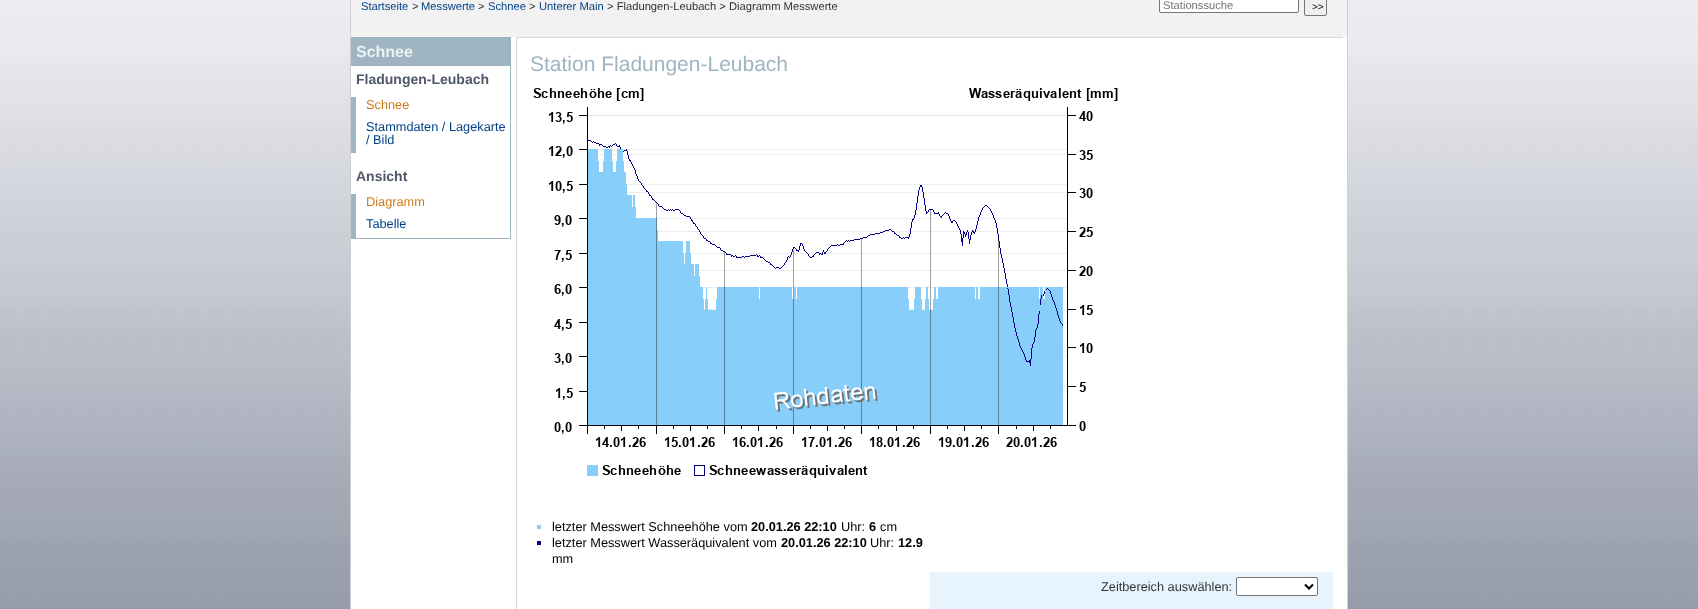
async function draw(canvas) {
	canvas.width = 1698;
	canvas.height = 609;
	const c = canvas.getContext('2d');
	c.miterLimit = 4;
	c.fontKerning = 'normal';
	async function loadImage(src) {
		const img = new Image();
		img.src = src;
		await img.decode();
		return img;
	}

	c.fillStyle = '#fff';
	c.fillRect(0, 0, 1698, 609);
	c.drawImage(await loadImage('img1.png'), 0, 0, 1698, 609);
	for (const [x, y, w, h, color] of [
		[351, 37, 996, 572, '#fff'],
		[1347, 0, 1, 609, '#cecfd4'],
		[350, 0, 1, 609, '#cecfd4'],
		[351, 0, 996, 37, '#f2f2f2'],
	]) {
		c.fillStyle = color;
		c.fillRect(x, y, w, h);
	}
	c.font = '11.2px Liberation Sans';
	c.fillStyle = '#004185';
	c.fillText('Startseite', 361, 10);
	c.fillStyle = '#333';
	c.fillText('>', 412, 10);
	c.fillStyle = '#004185';
	c.fillText('Messwerte', 421, 10);
	c.fillStyle = '#333';
	c.fillText('>', 478, 10);
	c.fillStyle = '#004185';
	c.fillText('Schnee', 488, 10);
	c.fillStyle = '#333';
	c.fillText('>', 529, 10);
	c.fillStyle = '#004185';
	c.fillText('Unterer Main', 539, 10);
	c.fillStyle = '#333';
	c.fillText('> Fladungen-Leubach > Diagramm Messwerte', 607, 10);
	c.fillStyle = '#fff';
	c.beginPath();
	c.roundRect(1159.5, -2.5, 139, 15, 1.5);
	c.fill();
	c.strokeStyle = '#767676';
	c.stroke();
	c.fillStyle = '#757575';
	c.fillText('Stationssuche', 1163, 9);
	c.fillStyle = '#efefef';
	c.beginPath();
	c.roundRect(1304.5, -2.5, 22, 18, 1.5);
	c.fill();
	c.stroke();
	c.font = '10px Liberation Sans';
	c.fillStyle = '#000';
	c.fillText('>>', 1312, 10);
	for (const [x, y, w, h, color] of [
		[351, 37, 160, 1, '#9fb5c1'],
		[510, 37, 1, 202, '#9fb5c1'],
		[351, 238, 160, 1, '#9fb5c1'],
		[351, 38, 159, 28, '#9fb5c1'],
	]) {
		c.fillStyle = color;
		c.fillRect(x, y, w, h);
	}
	c.font = 'bold 16px Liberation Sans';
	c.fillStyle = '#edf1f3';
	c.fillText('Schnee', 356, 57);
	c.font = 'bold 14px Liberation Sans';
	c.fillStyle = '#4f5869';
	c.fillText('Fladungen-Leubach', 356, 84);
	c.fillStyle = '#9fb5c1';
	c.fillRect(351, 97, 5, 56);
	c.font = '12.75px Liberation Sans';
	c.fillStyle = '#cc7b17';
	c.fillText('Schnee', 366, 109);
	c.fillStyle = '#004185';
	c.fillText('Stammdaten / Lagekarte', 366, 131);
	c.fillText('/ Bild', 366, 144);
	c.font = 'bold 14px Liberation Sans';
	c.fillStyle = '#4f5869';
	c.fillText('Ansicht', 356, 181);
	c.fillStyle = '#9fb5c1';
	c.fillRect(351, 194, 5, 44);
	c.font = '12.75px Liberation Sans';
	c.fillStyle = '#cc7b17';
	c.fillText('Diagramm', 366, 206);
	c.fillStyle = '#004185';
	c.fillText('Tabelle', 366, 228);
	c.fillStyle = '#d7d7d7';
	c.fillRect(516, 37, 827, 1);
	c.fillRect(516, 37, 1, 572);
	c.font = '21px Liberation Sans';
	c.fillStyle = '#9fb5c1';
	c.fillText('Station Fladungen-Leubach', 530, 71);
	c.drawImage(await loadImage('img2.png'), 533, 88, 585, 390);
	c.fillStyle = '#87cefa';
	c.fillRect(537, 525, 4, 4);
	c.font = '12.75px Liberation Sans';
	c.fillStyle = '#000';
	c.fillText('letzter Messwert Schneehöhe vom', 552, 531);
	c.font = 'bold 12.75px Liberation Sans';
	c.fillText('20.01.26 22:10', 751, 531);
	c.font = '12.75px Liberation Sans';
	c.fillText('Uhr:', 841, 531);
	c.font = 'bold 12.75px Liberation Sans';
	c.fillText('6', 869, 531);
	c.font = '12.75px Liberation Sans';
	c.fillText('cm', 880, 531);
	c.fillStyle = '#000080';
	c.fillRect(537, 541, 4, 4);
	c.fillStyle = '#000';
	c.fillText('letzter Messwert Wasseräquivalent vom', 552, 547);
	c.font = 'bold 12.75px Liberation Sans';
	c.fillText('20.01.26 22:10', 781, 547);
	c.font = '12.75px Liberation Sans';
	c.fillText('Uhr:', 870, 547);
	c.font = 'bold 12.75px Liberation Sans';
	c.fillText('12.9', 898, 547);
	c.font = '12.75px Liberation Sans';
	c.fillText('mm', 552, 563);
	c.fillStyle = '#e7f4fd';
	c.fillRect(930, 572, 403, 37);
	c.fillStyle = '#333';
	c.fillText('Zeitbereich auswählen:', 1101, 591);
	c.fillStyle = '#fff';
	c.beginPath();
	c.roundRect(1236.5, 577.5, 81, 18, 1.5);
	c.fill();
	c.stroke();
	c.beginPath();
	c.moveTo(1305, 584.5);
	c.lineTo(1309, 588.5);
	c.lineTo(1313, 584.5);
	c.strokeStyle = '#000';
	c.lineWidth = 2;
	c.stroke();
}

draw(document.querySelector('canvas'));
